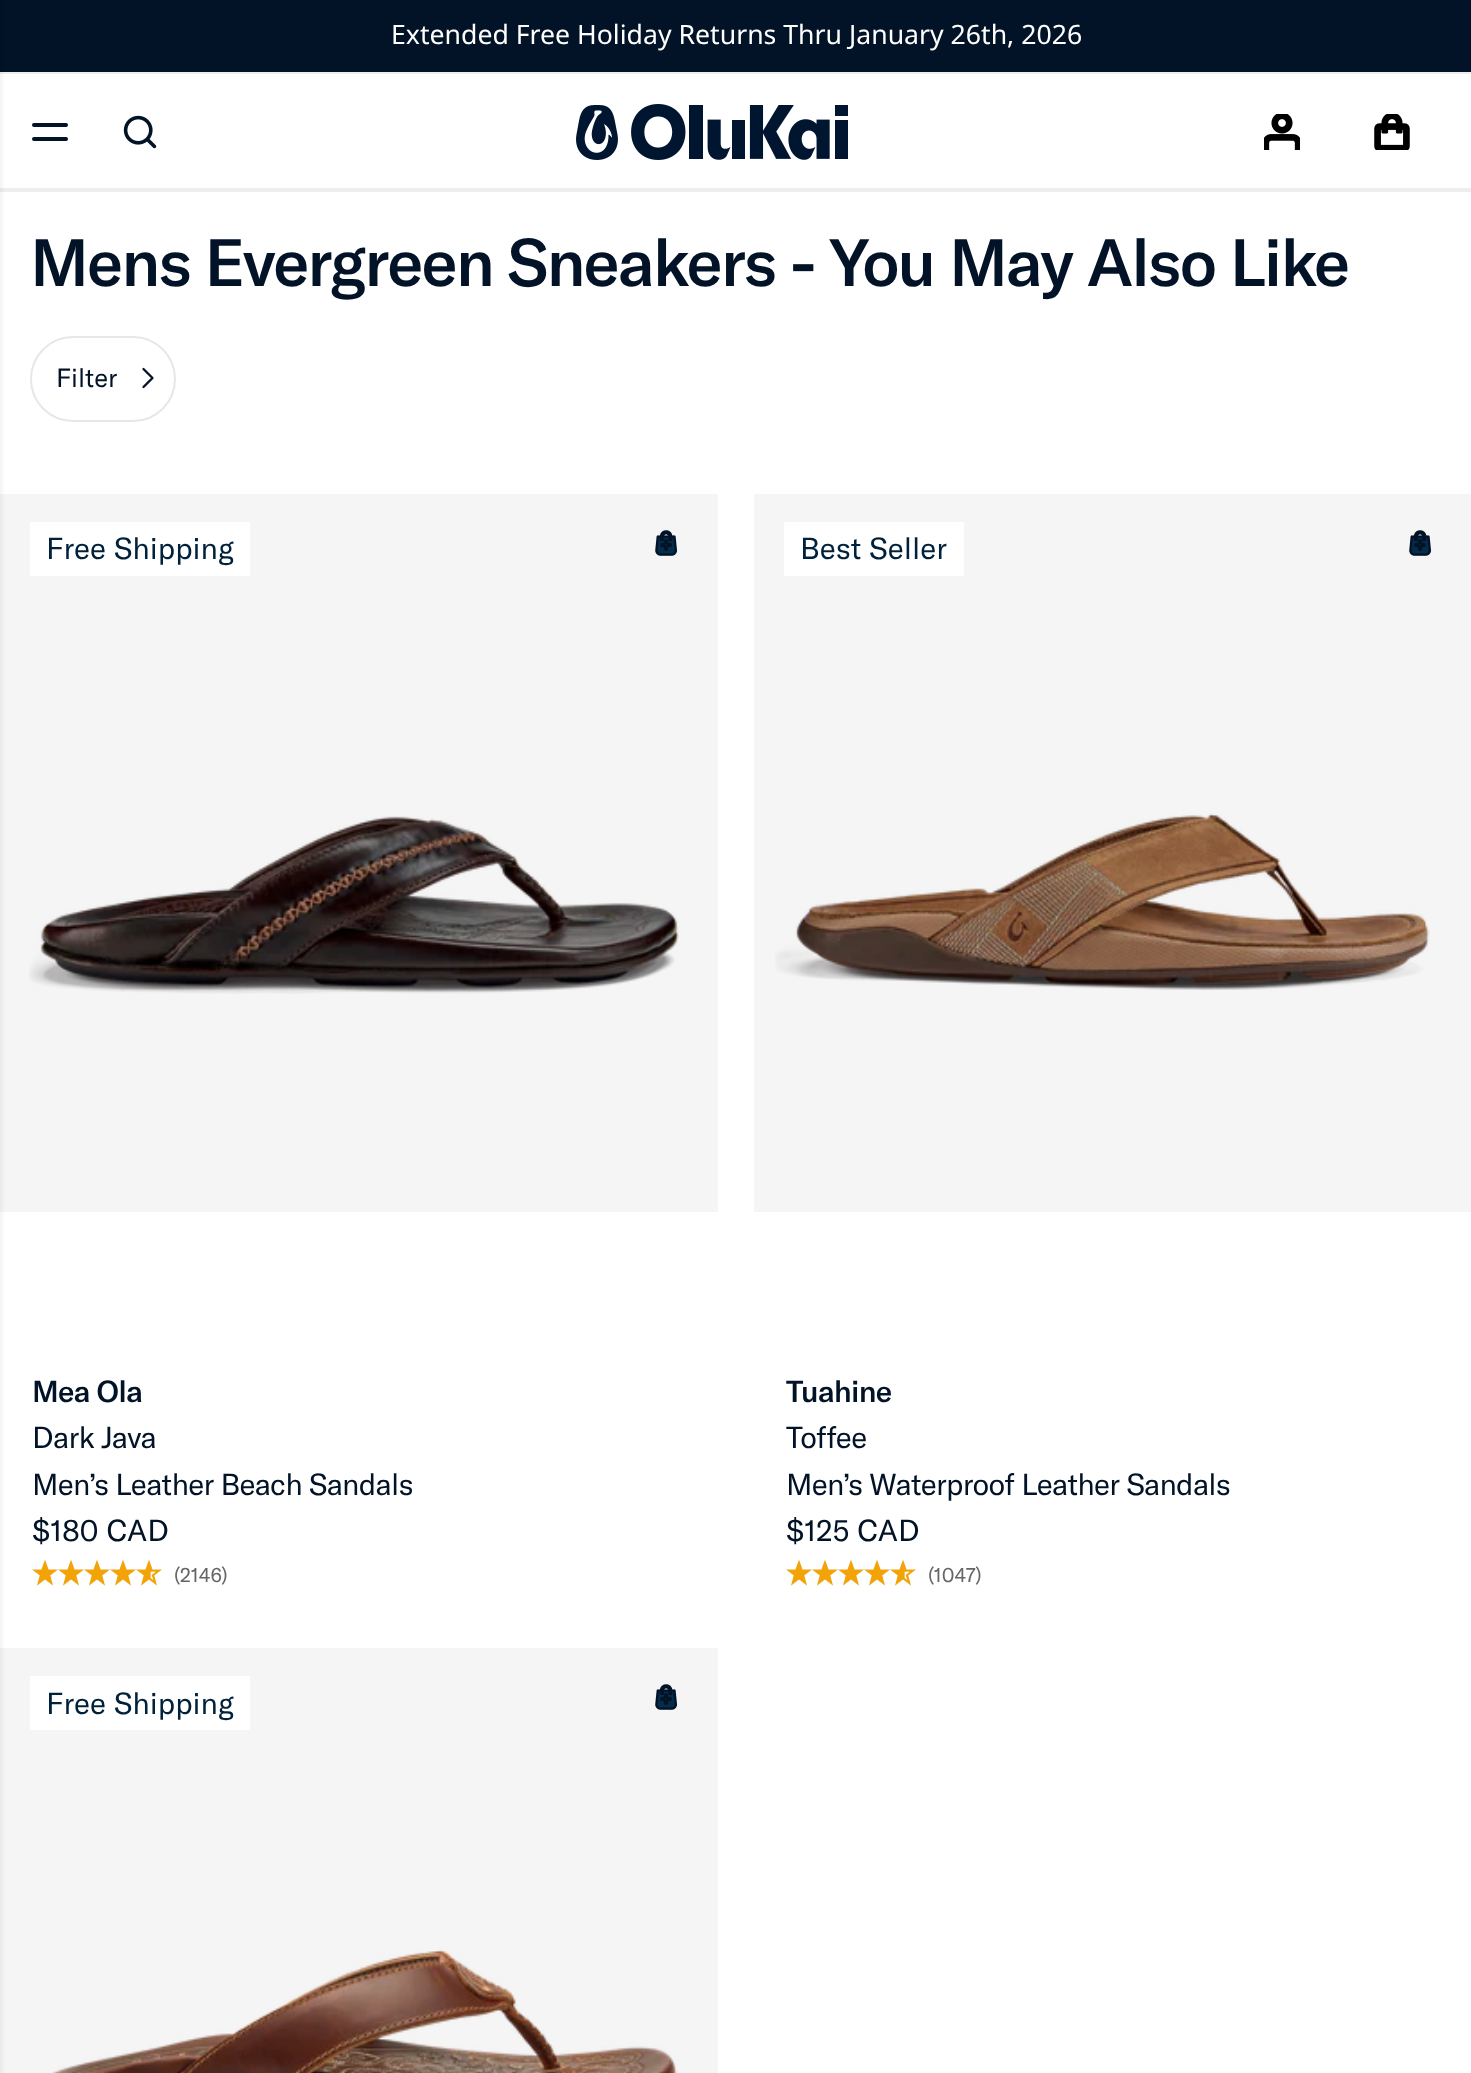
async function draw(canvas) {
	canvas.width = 1471;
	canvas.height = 2073;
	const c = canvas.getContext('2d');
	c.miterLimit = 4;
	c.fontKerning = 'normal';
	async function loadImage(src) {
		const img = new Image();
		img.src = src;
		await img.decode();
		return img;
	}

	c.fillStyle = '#fff';
	c.fillRect(0, 0, 1471, 2073);
	c.fillStyle = '#021327';
	c.fillRect(0, 0, 1471, 72);
	c.fillStyle = '#eee';
	c.fillRect(0, 72, 1471, 2);
	c.font = '26.65px Noto Sans';
	c.fillStyle = '#fff';
	c.fillText('Extended Free Holiday Returns Thru January 26th, 2026', 391, 44);
	c.fillStyle = '#eee';
	c.fillRect(0, 188, 1471, 4);
	c.fillStyle = '#021327';
	c.beginPath();
	c.roundRect(32, 137, 36, 4, 2);
	c.fill();
	c.beginPath();
	c.roundRect(32, 123, 36, 4, 2);
	c.fill();
	c.drawImage(await loadImage('img1.png'), 123, 115, 34, 34);
	c.drawImage(await loadImage('img2.png'), 576, 104, 272, 56);
	c.drawImage(await loadImage('img3.png'), 1264, 114, 36, 36);
	c.drawImage(await loadImage('img4.png'), 1374, 114, 36, 36);
	c.letterSpacing = '-2px';
	c.font = '500 66px GT America';
	c.fillText('Mens Evergreen Sneakers - You May Also Like', 30, 286);
	c.beginPath();
	c.roundRect(31, 337, 144, 84, 42);
	c.strokeStyle = '#e5e7eb';
	c.lineWidth = 2;
	c.stroke();
	c.letterSpacing = '0px';
	c.font = '26px GT America';
	c.fillText('Filter', 56, 387);
	c.beginPath();
	c.moveTo(143.5, 369);
	c.lineTo(152.5, 378);
	c.lineTo(143.5, 387);
	c.strokeStyle = '#021327';
	c.lineWidth = 2.3;
	c.lineCap = 'round';
	c.lineJoin = 'round';
	c.stroke();
	c.fillStyle = '#f5f5f5';
	c.fillRect(0, 494, 718, 718);
	c.fillRect(0, 1648, 718, 425);
	c.fillStyle = '#0000001a';
	c.filter = 'blur(3px)';
	c.beginPath();
	c.rect(-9, 2, 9, 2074);
	c.fill();
	c.filter = 'none';
	c.fillStyle = '#fff';
	c.fillRect(30, 522, 220, 54);
	c.font = '30px GT America';
	c.fillStyle = '#00213b';
	c.fillText('Free Shipping', 46, 559);
	c.drawImage(await loadImage('img5.png'), 655, 530, 23, 26);
	c.drawImage(await loadImage('img6.png'), 29, 816, 650, 178);
	c.letterSpacing = '-0.75px';
	c.font = '500 30px GT America';
	c.fillStyle = '#021327';
	c.fillText('Mea Ola', 32, 1402);
	c.font = '30px GT America';
	c.fillText('Dark Java', 32, 1448);
	c.fillText('Men’s Leather Beach Sandals', 32, 1495);
	c.letterSpacing = '0px';
	c.fillText('$180 CAD', 32, 1541);
	c.drawImage(await loadImage('img7.png'), 32, 1559, 26, 27);
	c.drawImage(await loadImage('img7.png'), 58, 1559, 26, 27);
	c.drawImage(await loadImage('img7.png'), 84, 1559, 26, 27);
	c.drawImage(await loadImage('img7.png'), 110, 1559, 26, 27);
	c.drawImage(await loadImage('img8.png'), 136, 1559, 26, 27);
	c.font = '20px GT America';
	c.fillStyle = '#666';
	c.fillText('(2146)', 174, 1582);
	c.fillStyle = '#f5f5f5';
	c.fillRect(754, 494, 717, 718);
	c.fillStyle = '#fff';
	c.fillRect(784, 522, 180, 54);
	c.font = '30px GT America';
	c.fillStyle = '#00213b';
	c.fillText('Best Seller', 800, 559);
	c.drawImage(await loadImage('img5.png'), 1409, 530, 23, 26);
	c.drawImage(await loadImage('img9.png'), 775, 813, 655, 177);
	c.letterSpacing = '-0.75px';
	c.font = '500 30px GT America';
	c.fillStyle = '#021327';
	c.fillText('Tuahine', 786, 1402);
	c.font = '30px GT America';
	c.fillText('Toffee', 786, 1448);
	c.fillText('Men’s Waterproof Leather Sandals', 786, 1495);
	c.letterSpacing = '0px';
	c.fillText('$125 CAD', 786, 1541);
	c.drawImage(await loadImage('img7.png'), 786, 1559, 26, 27);
	c.drawImage(await loadImage('img7.png'), 812, 1559, 26, 27);
	c.drawImage(await loadImage('img7.png'), 838, 1559, 26, 27);
	c.drawImage(await loadImage('img7.png'), 864, 1559, 26, 27);
	c.drawImage(await loadImage('img8.png'), 890, 1559, 26, 27);
	c.font = '20px GT America';
	c.fillStyle = '#666';
	c.fillText('(1047)', 928, 1582);
	c.fillStyle = '#fff';
	c.fillRect(30, 1676, 220, 54);
	c.font = '30px GT America';
	c.fillStyle = '#00213b';
	c.fillText('Free Shipping', 46, 1714);
	c.drawImage(await loadImage('img5.png'), 655, 1684, 23, 26);
	c.drawImage(await loadImage('img10.png'), 52, 1949, 626, 124);
}

draw(document.querySelector('canvas'));
